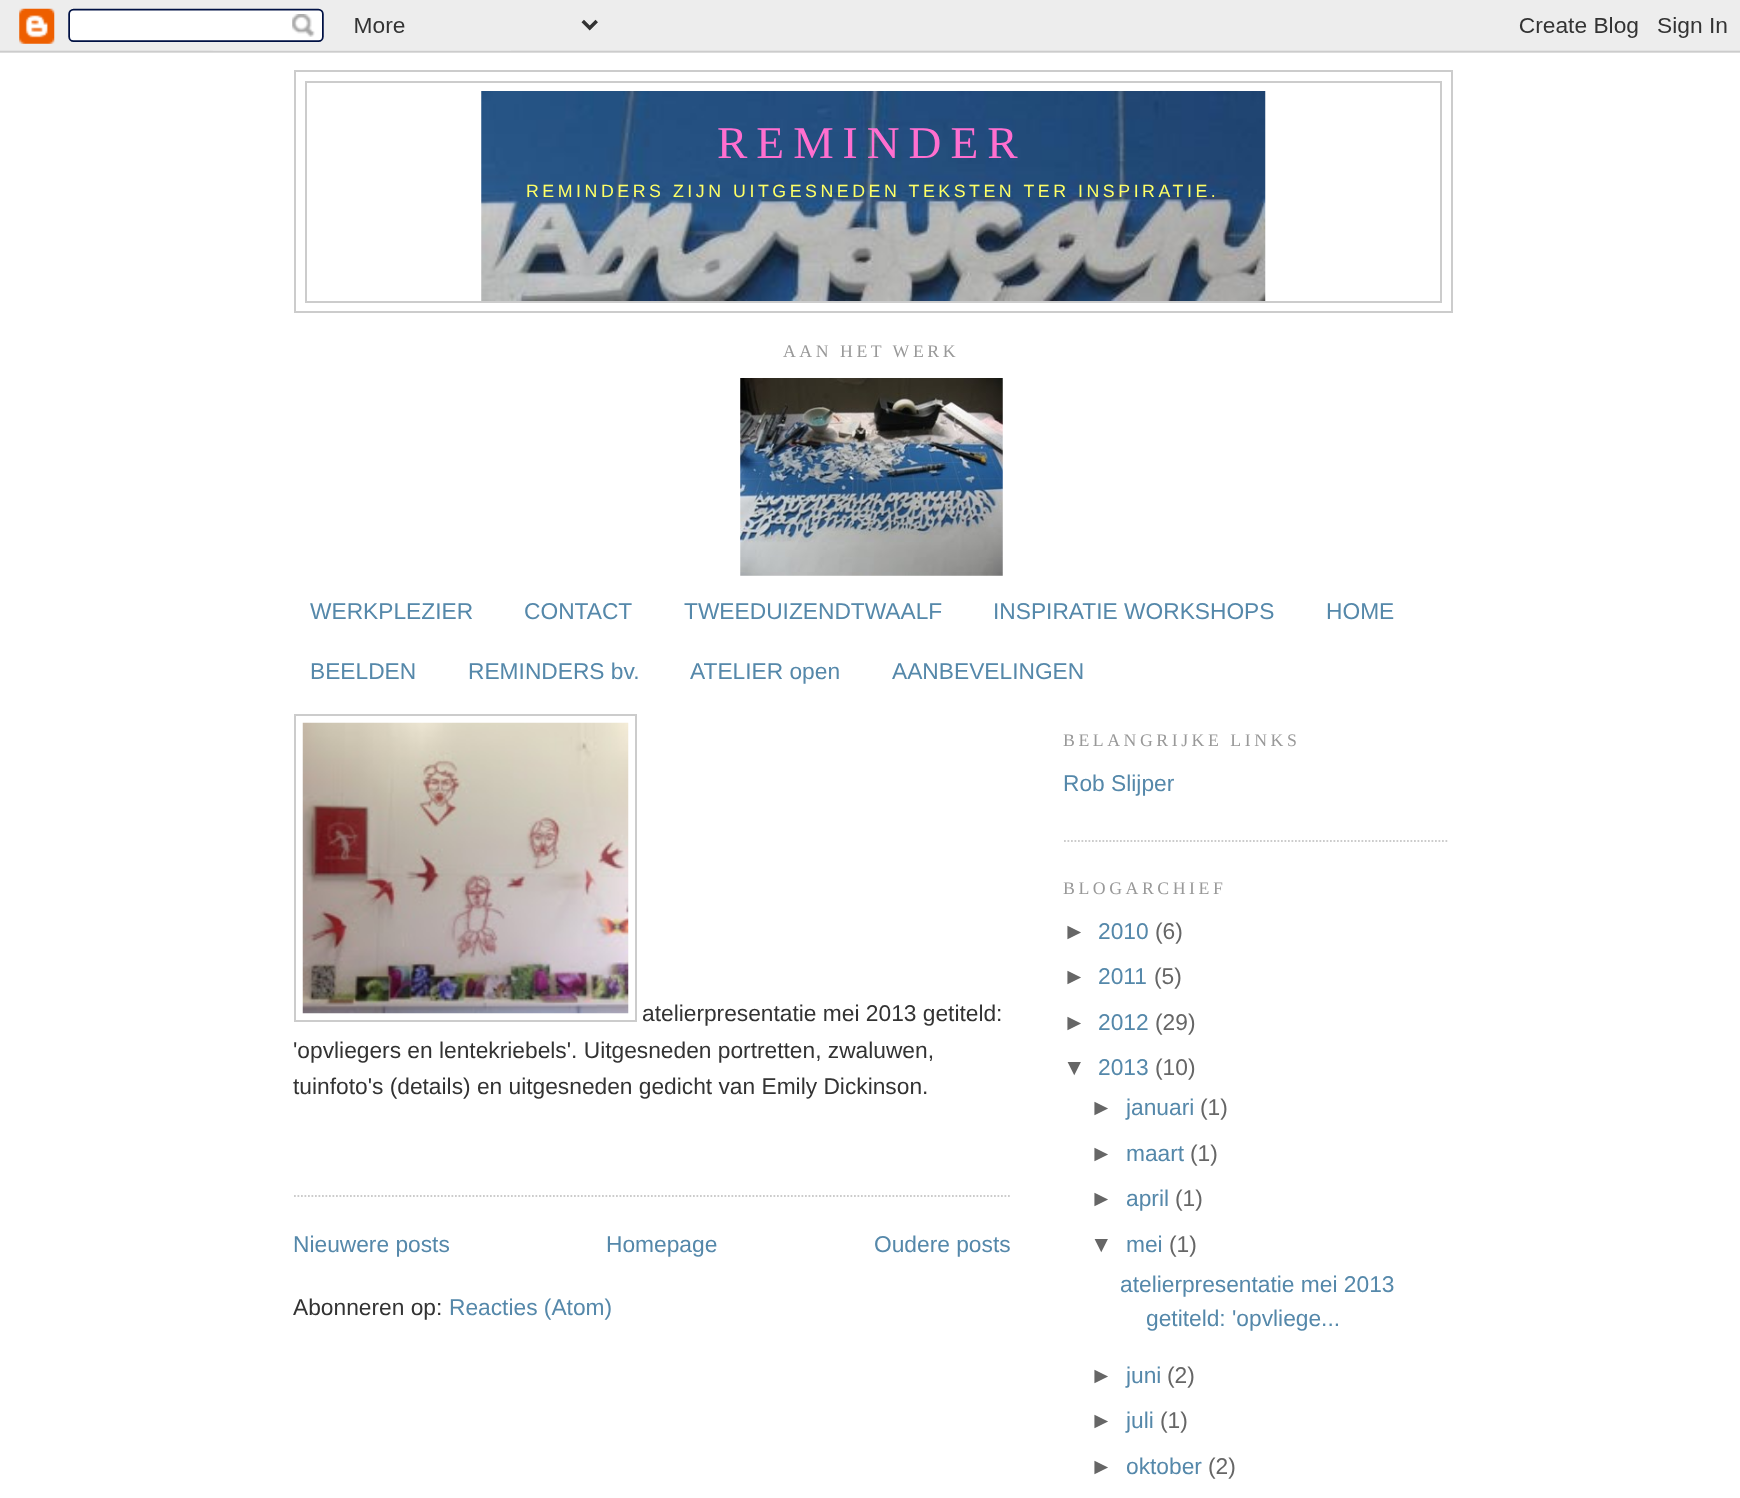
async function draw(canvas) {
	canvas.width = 1740;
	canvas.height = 1498;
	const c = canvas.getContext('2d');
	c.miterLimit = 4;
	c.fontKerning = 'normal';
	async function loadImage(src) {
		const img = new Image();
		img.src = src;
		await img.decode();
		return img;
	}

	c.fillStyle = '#fff';
	c.fillRect(0, 0, 1740, 1498);
	c.drawImage(await loadImage('img1.png'), 0, 0, 1740, 53);
	c.strokeStyle = '#ccc';
	c.lineWidth = 2;
	c.strokeRect(295, 71, 1157, 241);
	c.strokeRect(306, 82, 1135, 220);
	c.drawImage(await loadImage('img2.png'), 481, 91, 785, 210);
	c.letterSpacing = '9px';
	c.font = '45.5px Liberation Serif';
	c.fillStyle = '#ff6fcf';
	c.fillText('REMINDER', 717, 158);
	c.letterSpacing = '3.55px';
	c.font = '17.75px Liberation Sans';
	c.fillStyle = '#ff6';
	c.fillText('REMINDERS ZIJN UITGESNEDEN TEKSTEN TER INSPIRATIE.', 526, 197);
	c.font = '17.75px Liberation Serif';
	c.fillStyle = '#999';
	c.fillText('AAN HET WERK', 783, 357);
	c.drawImage(await loadImage('img3.png'), 740, 378, 263, 198);
	c.letterSpacing = '0px';
	c.font = '22.75px Liberation Sans';
	c.fillStyle = '#58a';
	for (const [text, x, y] of [
		['WERKPLEZIER', 310, 619],
		['CONTACT', 524, 619],
		['TWEEDUIZENDTWAALF', 684, 619],
		['INSPIRATIE WORKSHOPS', 993, 619],
		['HOME', 1326, 619],
		['BEELDEN', 310, 679],
		['REMINDERS bv.', 468, 679],
		['ATELIER open', 690, 679],
		['AANBEVELINGEN', 892, 679],
	]) {
		c.fillText(text, x, y);
	}
	c.beginPath();
	c.moveTo(294, 1196);
	c.lineTo(1011.5, 1196);
	c.lineWidth = 1.8;
	c.setLineDash([1.75, 1.75]);
	c.stroke();
	c.lineWidth = 2;
	c.setLineDash([]);
	c.strokeRect(295, 715, 341, 306);
	c.drawImage(await loadImage('img4.png'), 302, 722, 327, 292);
	c.fillStyle = '#333';
	for (const [text, x, y] of [
		['atelierpresentatie mei 2013 getiteld:', 642, 1021],
		['\'opvliegers en lentekriebels\'. Uitgesneden portretten, zwaluwen,', 293, 1058],
		['tuinfoto\'s (details) en uitgesneden gedicht van Emily Dickinson.', 293, 1094],
	]) {
		c.fillText(text, x, y);
	}
	c.fillStyle = '#58a';
	for (const [text, x, y] of [
		['Nieuwere posts', 293, 1252],
		['Homepage', 606, 1252],
		['Oudere posts', 874, 1252],
	]) {
		c.fillText(text, x, y);
	}
	c.fillStyle = '#333';
	c.fillText('Abonneren op:', 293, 1315);
	c.fillStyle = '#58a';
	c.fillText('Reacties (Atom)', 449, 1315);
	c.beginPath();
	c.moveTo(1064, 841);
	c.lineTo(1449, 841);
	c.lineWidth = 1.8;
	c.setLineDash([1.75, 1.75]);
	c.stroke();
	c.letterSpacing = '3.55px';
	c.font = '17.75px Liberation Serif';
	c.fillStyle = '#999';
	c.fillText('BELANGRIJKE LINKS', 1063, 746);
	c.letterSpacing = '0px';
	c.font = '22.75px Liberation Sans';
	c.fillStyle = '#58a';
	c.fillText('Rob Slijper', 1063, 791);
	c.letterSpacing = '3.55px';
	c.font = '17.75px Liberation Serif';
	c.fillStyle = '#999';
	c.fillText('BLOGARCHIEF', 1063, 894);
	c.letterSpacing = '0px';
	c.font = '22.75px Liberation Sans';
	c.fillStyle = '#666';
	c.fillText('►', 1063, 939);
	c.fillStyle = '#58a';
	c.fillText('2010', 1098, 939);
	c.fillStyle = '#666';
	c.fillText('(6)', 1155, 939);
	c.fillText('►', 1063, 984);
	c.fillStyle = '#58a';
	c.fillText('2011', 1098, 984);
	c.fillStyle = '#666';
	c.fillText('(5)', 1154, 984);
	c.fillText('►', 1063, 1030);
	c.fillStyle = '#58a';
	c.fillText('2012', 1098, 1030);
	c.fillStyle = '#666';
	c.fillText('(29)', 1155, 1030);
	c.fillText('▼', 1063, 1075);
	c.fillStyle = '#58a';
	c.fillText('2013', 1098, 1075);
	c.fillStyle = '#666';
	c.fillText('(10)', 1155, 1075);
	c.fillText('►', 1090, 1115);
	c.fillStyle = '#58a';
	c.fillText('januari', 1126, 1115);
	c.fillStyle = '#666';
	c.fillText('(1)', 1200, 1115);
	c.fillText('►', 1090, 1161);
	c.fillStyle = '#58a';
	c.fillText('maart', 1126, 1161);
	c.fillStyle = '#666';
	c.fillText('(1)', 1190, 1161);
	c.fillText('►', 1090, 1206);
	c.fillStyle = '#58a';
	c.fillText('april', 1126, 1206);
	c.fillStyle = '#666';
	c.fillText('(1)', 1175, 1206);
	c.fillText('▼', 1090, 1252);
	c.fillStyle = '#58a';
	c.fillText('mei', 1126, 1252);
	c.fillStyle = '#666';
	c.fillText('(1)', 1169, 1252);
	c.fillStyle = '#58a';
	c.fillText('atelierpresentatie mei 2013', 1120, 1292);
	c.fillText('getiteld: \'opvliege...', 1146, 1326);
	c.fillStyle = '#666';
	c.fillText('►', 1090, 1383);
	c.fillStyle = '#58a';
	c.fillText('juni', 1126, 1383);
	c.fillStyle = '#666';
	c.fillText('(2)', 1167, 1383);
	c.fillText('►', 1090, 1428);
	c.fillStyle = '#58a';
	c.fillText('juli', 1126, 1428);
	c.fillStyle = '#666';
	c.fillText('(1)', 1160, 1428);
	c.fillText('►', 1090, 1474);
	c.fillStyle = '#58a';
	c.fillText('oktober', 1126, 1474);
	c.fillStyle = '#666';
	c.fillText('(2)', 1208, 1474);
}

draw(document.querySelector('canvas'));
